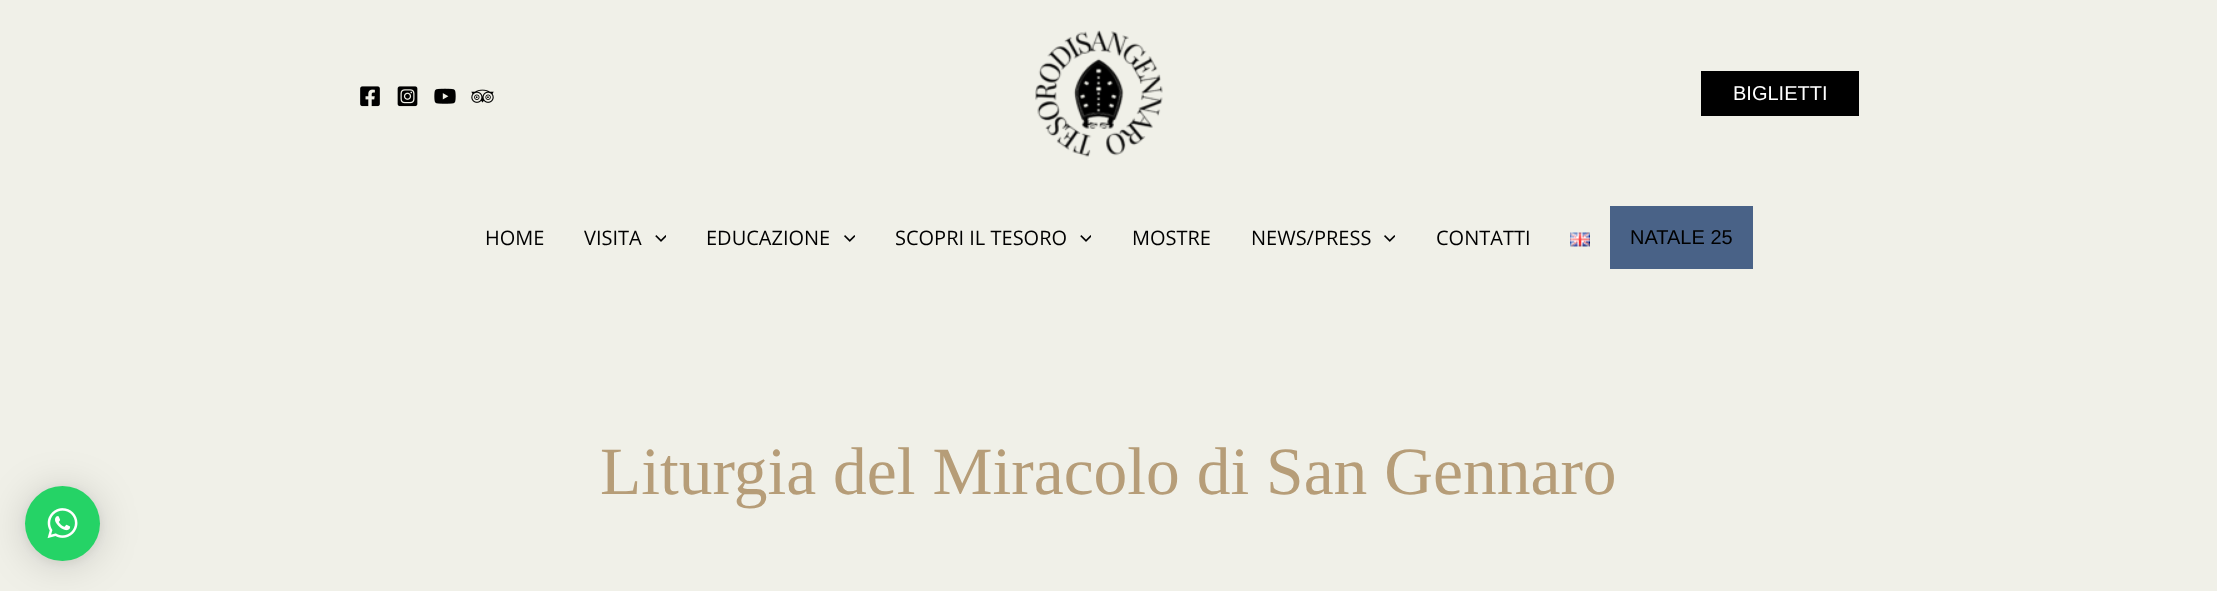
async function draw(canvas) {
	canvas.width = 2217;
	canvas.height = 591;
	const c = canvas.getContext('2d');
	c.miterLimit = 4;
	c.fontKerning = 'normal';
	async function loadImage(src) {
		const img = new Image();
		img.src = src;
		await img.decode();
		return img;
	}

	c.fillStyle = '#f0f0e8';
	c.fillRect(0, 0, 2217, 591);
	c.fillStyle = '#00000029';
	c.filter = 'blur(20px)';
	c.beginPath();
	c.roundRect(25, 489, 75, 75, 37.5);
	c.fill();
	c.filter = 'none';
	c.fillStyle = '#0000000f';
	c.filter = 'blur(4px)';
	c.beginPath();
	c.roundRect(25, 488, 75, 75, 37.5);
	c.fill();
	c.filter = 'none';
	c.fillStyle = '#25d366';
	c.beginPath();
	c.arc(62.5, 523.5, 37.5, 0, 2 * Math.PI);
	c.fill();
	c.drawImage(await loadImage('img1.png'), 47, 508, 31, 31);
	c.drawImage(await loadImage('img2.png'), 360, 86, 20, 21);
	c.drawImage(await loadImage('img3.png'), 397, 86, 21, 21);
	c.drawImage(await loadImage('img4.png'), 434, 88, 22, 16);
	c.drawImage(await loadImage('img5.png'), 471, 89, 23, 14);
	c.drawImage(await loadImage('img6.png'), 1035, 30, 128, 127);
	c.fillStyle = '#000';
	c.fillRect(1701, 71, 158, 45);
	c.font = '20px Liberation Sans';
	c.fillStyle = '#fff';
	c.fillText('BIGLIETTI', 1733, 100);
	c.font = '20px Open Sans';
	c.fillStyle = '#000';
	c.fillText('HOME', 485, 245);
	c.fillText('VISITA', 584, 245);
	c.drawImage(await loadImage('img7.png'), 655, 235, 11, 7);
	c.fillText('EDUCAZIONE', 706, 245);
	c.drawImage(await loadImage('img8.png'), 844, 235, 11, 7);
	c.fillText('SCOPRI IL TESORO', 895, 245);
	c.drawImage(await loadImage('img7.png'), 1080, 235, 11, 7);
	c.fillText('MOSTRE', 1132, 245);
	c.fillText('NEWS/PRESS', 1251, 245);
	c.drawImage(await loadImage('img8.png'), 1384, 235, 11, 7);
	c.fillText('CONTATTI', 1436, 245);
	c.drawImage(await loadImage('img9.png'), 1570, 232, 20, 15);
	c.fillStyle = '#496287';
	c.fillRect(1610, 206, 143, 63);
	c.font = '20px Liberation Sans';
	c.fillStyle = '#000';
	c.fillText('NATALE 25', 1630, 244);
	c.font = '67.5px Liberation Serif';
	c.fillStyle = '#b69d78';
	c.fillText('Liturgia del Miracolo di San Gennaro', 600, 494);
}

draw(document.querySelector('canvas'));
